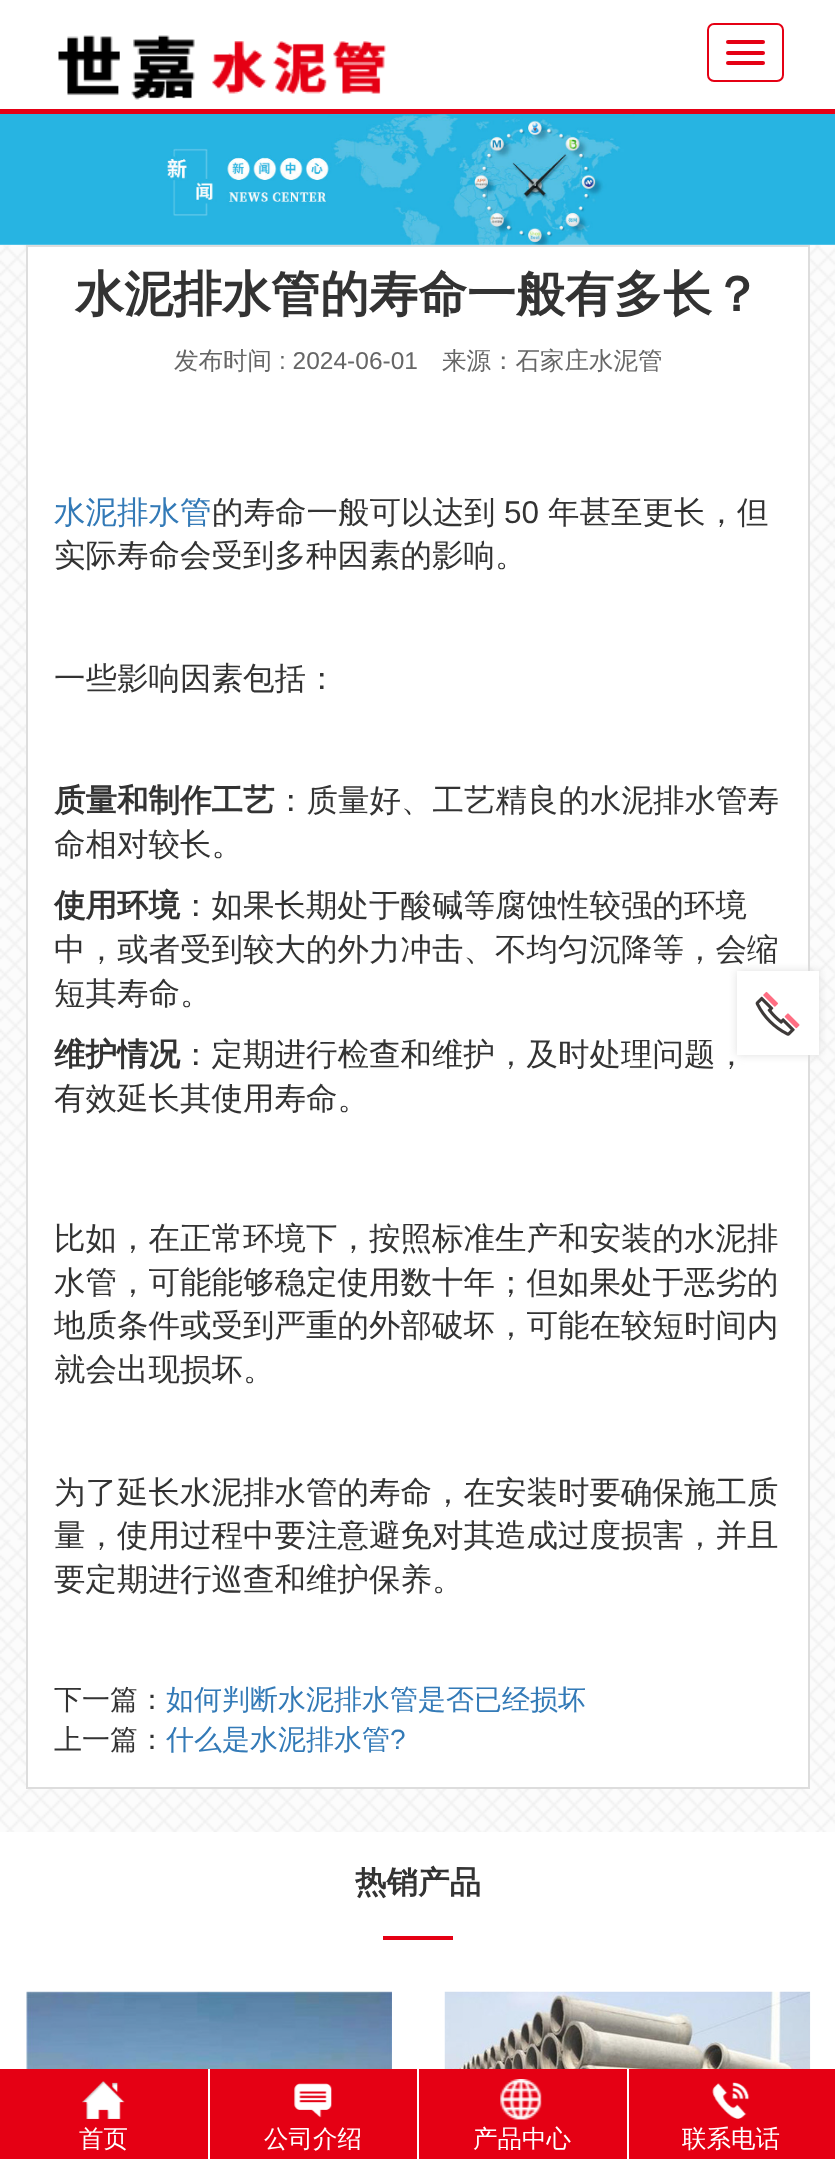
async function draw(canvas) {
	canvas.width = 835;
	canvas.height = 2159;
	const c = canvas.getContext('2d');
	c.miterLimit = 4;
	c.fontKerning = 'normal';
	async function loadImage(src) {
		const img = new Image();
		img.src = src;
		await img.decode();
		return img;
	}

	c.fillStyle = '#fff';
	c.fillRect(0, 0, 835, 2159);
	c.fillStyle = '#e50015';
	c.fillRect(0, 109, 835, 5);
	c.drawImage(await loadImage('img1.png'), 58, 35, 328, 65);
	c.beginPath();
	c.roundRect(708, 24, 75, 57, 6);
	c.strokeStyle = '#e50014';
	c.lineWidth = 2;
	c.stroke();
	c.fillStyle = '#e50014';
	c.beginPath();
	c.roundRect(726, 40, 39, 4, 2);
	c.fill();
	c.beginPath();
	c.roundRect(726, 51, 39, 4, 2);
	c.fill();
	c.beginPath();
	c.roundRect(726, 61, 39, 4, 2);
	c.fill();
	c.drawImage(await loadImage('img2.png'), 0, 114, 835, 131);
	c.drawImage(await loadImage('img3.png'), 0, 245, 835, 1587);
	c.fillStyle = '#fff';
	c.beginPath();
	c.rect(27, 246, 782, 1542);
	c.fill();
	c.strokeStyle = '#ddd';
	c.stroke();
	c.font = 'bold 49px WenQuanYi Zen Hei';
	c.fillStyle = '#333';
	c.fillText('水泥排水管的寿命一般有多长？', 75, 311);
	c.font = '500 24.5px WenQuanYi Zen Hei';
	c.fillStyle = '#666';
	c.fillText('发布时间', 174, 369);
	c.font = '24.5px Liberation Sans';
	c.fillText(': 2024-06-01', 279, 369);
	c.font = '500 24.5px WenQuanYi Zen Hei';
	c.fillText('来源：石家庄水泥管', 442, 369);
	c.font = '500 31.5px WenQuanYi Zen Hei';
	c.fillStyle = '#337ab7';
	c.fillText('水泥排水管', 54, 523);
	c.fillStyle = '#333';
	c.fillText('的寿命一般可以达到', 212, 523);
	c.font = '31.5px Liberation Sans';
	c.fillText('50', 504, 523);
	c.font = '500 31.5px WenQuanYi Zen Hei';
	for (const [text, x, y] of [
		['年甚至更长，但', 548, 523],
		['实际寿命会受到多种因素的影响。', 54, 566],
		['一些影响因素包括：', 54, 689],
	]) {
		c.fillText(text, x, y);
	}
	c.font = 'bold 31.5px WenQuanYi Zen Hei';
	c.fillText('质量和制作工艺', 54, 811);
	c.font = '500 31.5px WenQuanYi Zen Hei';
	c.fillText('：质量好、工艺精良的水泥排水管寿', 275, 811);
	c.fillText('命相对较长。', 54, 855);
	c.font = 'bold 31.5px WenQuanYi Zen Hei';
	c.fillText('使用环境', 54, 916);
	c.font = '500 31.5px WenQuanYi Zen Hei';
	for (const [text, x, y] of [
		['：如果长期处于酸碱等腐蚀性较强的环境', 180, 916],
		['中，或者受到较大的外力冲击、不均匀沉降等，会缩', 54, 960],
		['短其寿命。', 54, 1004],
	]) {
		c.fillText(text, x, y);
	}
	c.font = 'bold 31.5px WenQuanYi Zen Hei';
	c.fillText('维护情况', 54, 1065);
	c.font = '500 31.5px WenQuanYi Zen Hei';
	for (const [text, x, y] of [
		['：定期进行检查和维护，及时处理问题，', 180, 1065],
		['有效延长其使用寿命。', 54, 1109],
		['比如，在正常环境下，按照标准生产和安装的水泥排', 54, 1249],
		['水管，可能能够稳定使用数十年；但如果处于恶劣的', 54, 1293],
		['地质条件或受到严重的外部破坏，可能在较短时间内', 54, 1336],
		['就会出现损坏。', 54, 1380],
		['为了延长水泥排水管的寿命，在安装时要确保施工质', 54, 1503],
		['量，使用过程中要注意避免对其造成过度损害，并且', 54, 1546],
		['要定期进行巡查和维护保养。', 54, 1590],
	]) {
		c.fillText(text, x, y);
	}
	c.font = '500 28px WenQuanYi Zen Hei';
	c.fillText('下一篇：', 54, 1709);
	c.fillStyle = '#337ab7';
	c.fillText('如何判断水泥排水管是否已经损坏', 166, 1709);
	c.fillStyle = '#333';
	c.fillText('上一篇：', 54, 1749);
	c.fillStyle = '#337ab7';
	c.fillText('什么是水泥排水管', 166, 1749);
	c.font = '28px Liberation Sans';
	c.fillText('?', 390, 1749);
	c.fillStyle = '#ddd';
	c.filter = 'blur(4.5px)';
	c.beginPath();
	c.rect(737, 971, 82, 84);
	c.fill();
	c.filter = 'none';
	c.fillStyle = '#fff';
	c.fillRect(737, 971, 82, 84);
	c.drawImage(await loadImage('img4.png'), 755, 991, 45, 45);
	c.font = 'bold 31.5px WenQuanYi Zen Hei';
	c.fillStyle = '#333';
	c.fillText('热销产品', 355, 1893);
	c.fillStyle = '#e50014';
	c.fillRect(383, 1936, 70, 4);
	c.drawImage(await loadImage('img5.png'), 26, 1991, 366, 78);
	c.drawImage(await loadImage('img6.png'), 444, 1991, 367, 78);
	c.fillRect(0, 2069, 835, 90);
	c.fillStyle = '#fff';
	c.fillRect(208, 2069, 2, 90);
	c.drawImage(await loadImage('img7.png'), 82, 2081, 43, 38);
	c.font = '500 24.5px WenQuanYi Zen Hei';
	c.fillText('首页', 79, 2147);
	c.fillRect(417, 2069, 2, 90);
	c.drawImage(await loadImage('img8.png'), 294, 2083, 38, 35);
	c.fillText('公司介绍', 264, 2147);
	c.fillRect(627, 2069, 2, 90);
	c.drawImage(await loadImage('img9.png'), 500, 2079, 42, 41);
	c.fillText('产品中心', 473, 2147);
	c.drawImage(await loadImage('img10.png'), 712, 2082, 38, 37);
	c.fillText('联系电话', 682, 2147);
}

draw(document.querySelector('canvas'));
